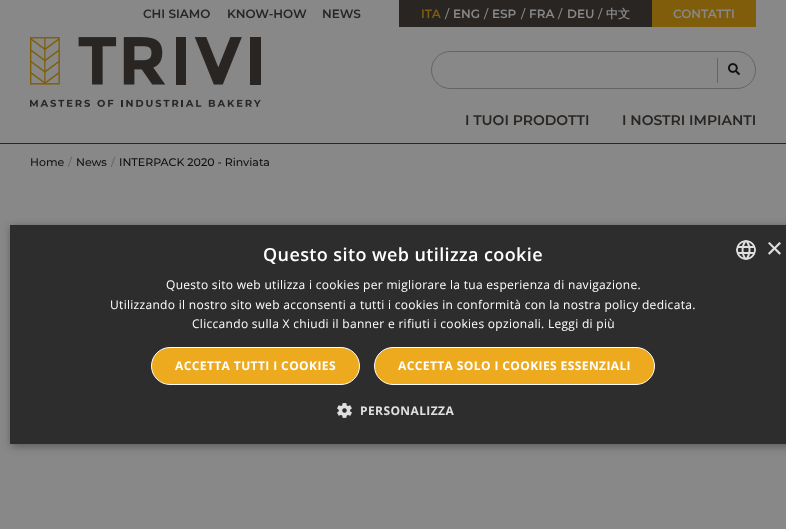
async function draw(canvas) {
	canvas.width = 786;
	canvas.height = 529;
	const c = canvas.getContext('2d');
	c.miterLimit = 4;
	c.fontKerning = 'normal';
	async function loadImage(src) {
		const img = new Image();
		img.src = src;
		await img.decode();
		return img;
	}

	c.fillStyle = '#888';
	c.fillRect(0, 0, 786, 529);
	c.fillStyle = '#282523';
	c.fillRect(0, 143, 786, 1);
	c.font = '600 12px Montserrat';
	for (const [text, x, y] of [
		['CHI SIAMO', 143, 18],
		['KNOW-HOW', 227, 18],
		['NEWS', 322, 18],
	]) {
		c.fillText(text, x, y);
	}
	c.fillRect(399, 0, 253, 27);
	c.fillStyle = '#805d0b';
	c.fillText('ITA', 421, 18);
	c.font = '500 12px Montserrat';
	c.fillStyle = '#888';
	c.fillText('/', 445, 18);
	c.font = '600 12px Montserrat';
	c.fillText('ENG', 453, 18);
	c.font = '500 12px Montserrat';
	c.fillText('/', 484, 18);
	c.font = '600 12px Montserrat';
	c.fillText('ESP', 492, 18);
	c.font = '500 12px Montserrat';
	c.fillText('/', 521, 18);
	c.font = '600 12px Montserrat';
	c.fillText('FRA', 529, 18);
	c.font = '500 12px Montserrat';
	c.fillText('/', 558, 18);
	c.font = '600 12px Montserrat';
	c.fillText('DEU', 567, 18);
	c.font = '500 12px Montserrat';
	c.fillText('/', 598, 18);
	c.font = 'bold 12px WenQuanYi Zen Hei';
	c.fillText('中文', 606, 18);
	c.fillStyle = '#805d0b';
	c.fillRect(652, 0, 104, 27);
	c.font = '600 12px Montserrat';
	c.fillStyle = '#888';
	c.fillText('CONTATTI', 673, 18);
	c.beginPath();
	c.roundRect(431.5, 51.5, 324, 37, 18.5);
	c.strokeStyle = '#616769';
	c.stroke();
	c.fillStyle = '#616769';
	c.fillRect(717, 58, 1, 25);
	c.drawImage(await loadImage('img1.png'), 728, 63, 12, 13);
	c.drawImage(await loadImage('img2.png'), 30, 37, 231, 70);
	c.font = '600 14px Montserrat';
	c.fillStyle = '#282523';
	c.fillText('I TUOI PRODOTTI', 465, 125);
	c.fillText('I NOSTRI IMPIANTI', 622, 125);
	c.font = '500 11px Montserrat';
	c.fillStyle = '#131313';
	c.fillText('Home', 30, 166);
	c.fillStyle = '#616769';
	c.fillText('/', 68, 166);
	c.fillStyle = '#131313';
	c.fillText('News', 76, 166);
	c.fillStyle = '#616769';
	c.fillText('/', 111, 166);
	c.fillStyle = '#120f0c';
	c.fillText('INTERPACK 2020 - Rinviata', 119, 166);
	c.fillStyle = '#00000059';
	c.filter = 'blur(4px)';
	c.beginPath();
	c.rect(11, 227, 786, 219);
	c.fill();
	c.filter = 'none';
	c.fillStyle = '#2d2d2d';
	c.fillRect(10, 225, 776, 219);
	c.letterSpacing = '0.4px';
	c.font = '600 18px Open Sans';
	c.fillStyle = '#fff';
	c.fillText('Questo sito web utilizza cookie', 263, 261);
	c.drawImage(await loadImage('img3.png'), 736, 240, 20, 20);
	c.letterSpacing = '0px';
	c.font = '29px Liberation Sans';
	c.fillStyle = '#e0e0e0';
	c.fillText('×', 766, 258);
	c.letterSpacing = '0.3px';
	c.font = '12px Open Sans';
	c.fillStyle = '#fff';
	for (const [text, x, y] of [
		['Questo sito web utilizza i cookies per migliorare la tua esperienza di navigazione.', 166, 289],
		['Utilizzando il nostro sito web acconsenti a tutti i cookies in conformità con la nostra policy dedicata.', 110, 309],
		['Cliccando sulla X chiudi il banner e rifiuti i cookies opzionali. Leggi di più', 192, 328],
	]) {
		c.fillText(text, x, y);
	}
	c.fillStyle = '#edaa1e';
	c.beginPath();
	c.roundRect(151.5, 347.5, 208, 37, 18.5);
	c.fill();
	c.strokeStyle = '#fff';
	c.stroke();
	c.letterSpacing = '0.4px';
	c.font = 'bold 12px Open Sans';
	c.fillStyle = '#fff';
	c.fillText('ACCETTA TUTTI I COOKIES', 175, 370);
	c.fillStyle = '#edaa1e';
	c.beginPath();
	c.roundRect(374.5, 347.5, 280, 37, 18.5);
	c.fill();
	c.stroke();
	c.fillStyle = '#fff';
	c.fillText('ACCETTA SOLO I COOKIES ESSENZIALI', 398, 370);
	c.drawImage(await loadImage('img4.png'), 337, 403, 15, 15);
	c.fillStyle = '#e0e0e0';
	c.fillText('PERSONALIZZA', 360, 415);
}

draw(document.querySelector('canvas'));
